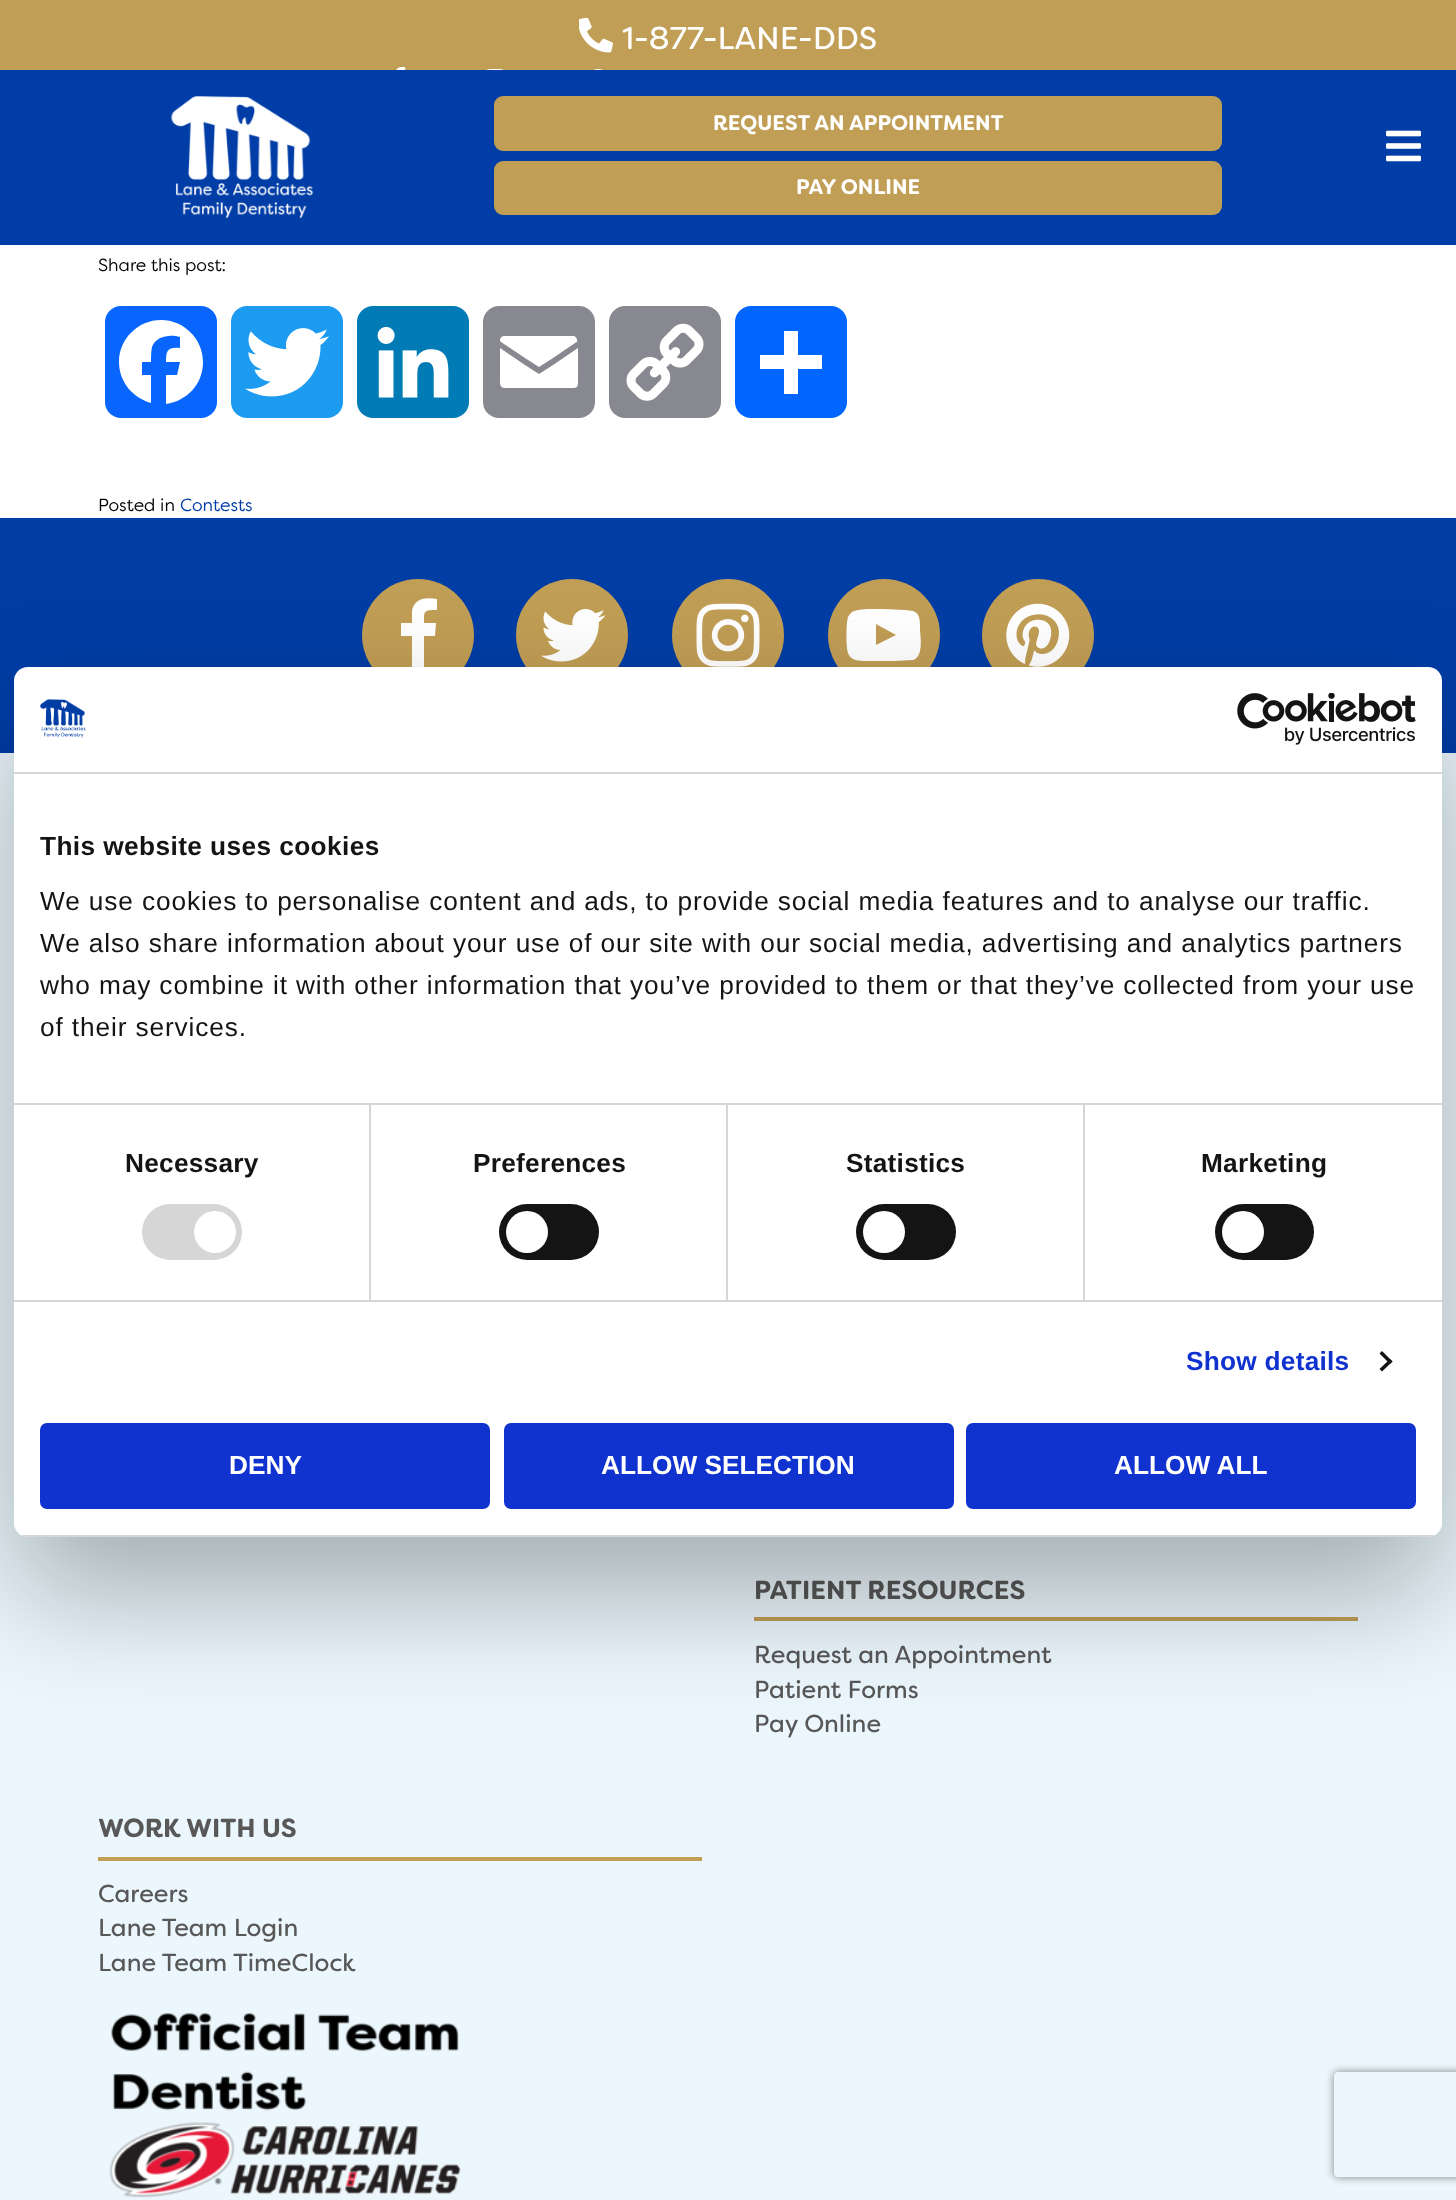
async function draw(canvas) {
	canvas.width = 1456;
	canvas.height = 2200;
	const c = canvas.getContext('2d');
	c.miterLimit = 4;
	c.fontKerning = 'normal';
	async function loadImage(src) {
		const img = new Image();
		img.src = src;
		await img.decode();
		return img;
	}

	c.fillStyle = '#fff';
	c.fillRect(0, 0, 1456, 2200);
	c.fillStyle = '#c19e55';
	c.fillRect(0, 0, 1456, 70);
	c.drawImage(await loadImage('img1.png'), 579, 18, 34, 35);
	c.font = '31.5px "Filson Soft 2"';
	c.fillStyle = '#fff';
	c.fillText('1-877-LANE-DDS', 622, 49);
	c.drawImage(await loadImage('img2.png'), 396, 67, 10, 3);
	c.drawImage(await loadImage('img3.png'), 486, 69, 18, 1);
	c.drawImage(await loadImage('img4.png'), 593, 69, 10, 1);
	c.fillStyle = '#003da7';
	c.fillRect(0, 70, 1456, 175);
	c.drawImage(await loadImage('img5.png'), 171, 96, 143, 123);
	c.fillStyle = '#c19e55';
	c.beginPath();
	c.roundRect(494, 96, 728, 55, 9);
	c.fill();
	c.font = 'bold 21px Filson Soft';
	c.fillStyle = '#fff';
	c.fillText('REQUEST AN APPOINTMENT', 713, 130);
	c.fillStyle = '#c19e55';
	c.beginPath();
	c.roundRect(494, 161, 728, 54, 9);
	c.fill();
	c.fillStyle = '#fff';
	c.fillText('PAY ONLINE', 796, 194);
	c.drawImage(await loadImage('img6.png'), 1386, 130, 35, 32);
	c.font = '17.5px Filson Soft';
	c.fillStyle = '#000';
	c.fillText('Share this post:', 98, 271);
	c.fillStyle = '#0866ff';
	c.beginPath();
	c.roundRect(105, 306, 112, 112, 16);
	c.fill();
	c.fillStyle = '#fff';
	c.beginPath();
	c.moveTo(203, 362);
	c.bezierCurveTo(203, 339, 184, 320, 161, 320);
	c.bezierCurveTo(138, 320, 119, 339, 119, 362);
	c.bezierCurveTo(119, 382, 133, 398, 151, 403);
	c.lineTo(151, 375);
	c.lineTo(142, 375);
	c.lineTo(142, 362);
	c.lineTo(151, 362);
	c.bezierCurveTo(151, 357, 151, 352, 152, 347);
	c.bezierCurveTo(156, 336, 170, 334, 180, 337);
	c.lineTo(180, 348);
	c.bezierCurveTo(168, 347, 166, 350, 166, 362);
	c.lineTo(180, 362);
	c.lineTo(177, 375);
	c.lineTo(166, 375);
	c.lineTo(166, 404);
	c.bezierCurveTo(187, 401, 203, 384, 203, 362);
	c.fill();
	c.fillStyle = '#1d9bf0';
	c.beginPath();
	c.roundRect(231, 306, 112, 112, 16);
	c.fill();
	c.drawImage(await loadImage('img7.png'), 245, 328, 84, 69);
	c.fillStyle = '#007bb5';
	c.beginPath();
	c.roundRect(357, 306, 112, 112, 16);
	c.fill();
	c.drawImage(await loadImage('img8.png'), 377, 326, 72, 72);
	c.fillStyle = '#888990';
	c.beginPath();
	c.roundRect(483, 306, 112, 112, 16);
	c.fill();
	c.fillStyle = '#fff';
	c.beginPath();
	c.moveTo(578, 382);
	c.lineTo(578, 348);
	c.lineTo(553, 365);
	c.lineTo(539, 374);
	c.lineTo(525, 365);
	c.lineTo(500, 348);
	c.lineTo(500, 382);
	c.bezierCurveTo(500, 387, 502, 388, 506, 388);
	c.lineTo(572, 388);
	c.bezierCurveTo(577, 388, 578, 387, 578, 382);
	c.moveTo(577, 341);
	c.bezierCurveTo(577, 338, 576, 336, 572, 336);
	c.lineTo(506, 336);
	c.bezierCurveTo(501, 336, 500, 338, 500, 341);
	c.lineTo(501, 342);
	c.lineTo(525, 358);
	c.lineTo(539, 367);
	c.lineTo(553, 358);
	c.lineTo(578, 341);
	c.closePath();
	c.fill();
	c.fillStyle = '#888990';
	c.beginPath();
	c.roundRect(609, 306, 112, 112, 16);
	c.fill();
	c.drawImage(await loadImage('img9.png'), 626, 323, 78, 78);
	c.fillStyle = '#0166ff';
	c.beginPath();
	c.roundRect(735, 306, 112, 112, 16);
	c.fill();
	c.fillStyle = '#fff';
	c.fillRect(784, 331, 14, 63);
	c.fillRect(760, 355, 62, 14);
	c.fillStyle = '#000';
	c.fillText('Posted in', 98, 511);
	c.fillStyle = '#003da5';
	c.fillText('Contests', 180, 511);
	c.fillRect(0, 518, 1456, 235);
	c.fillStyle = '#c19e55';
	c.beginPath();
	c.arc(418, 635, 56, 0, 2 * Math.PI);
	c.fill();
	c.fillStyle = '#fff';
	c.beginPath();
	c.moveTo(437, 599);
	c.bezierCurveTo(426, 597, 414, 598, 412, 611);
	c.lineTo(412, 623);
	c.lineTo(401, 623);
	c.lineTo(401, 636);
	c.lineTo(412, 636);
	c.lineTo(412, 667);
	c.lineTo(424, 667);
	c.lineTo(424, 636);
	c.lineTo(435, 636);
	c.lineTo(436, 623);
	c.lineTo(424, 623);
	c.bezierCurveTo(424, 611, 423, 610, 437, 610);
	c.closePath();
	c.fill();
	c.fillStyle = '#c19e55';
	c.beginPath();
	c.arc(572, 635, 56, 0, 2 * Math.PI);
	c.fill();
	c.drawImage(await loadImage('img10.png'), 541, 609, 65, 53);
	c.beginPath();
	c.arc(728, 635, 56, 0, 2 * Math.PI);
	c.fill();
	c.drawImage(await loadImage('img11.png'), 696, 603, 64, 64);
	c.beginPath();
	c.arc(884, 635, 56, 0, 2 * Math.PI);
	c.fill();
	c.fillStyle = '#fff';
	c.beginPath();
	c.moveTo(876, 645);
	c.lineTo(876, 624);
	c.lineTo(896, 635);
	c.closePath();
	c.moveTo(884, 609);
	c.bezierCurveTo(879, 609, 857, 608, 852, 612);
	c.bezierCurveTo(850, 614, 849, 615, 848, 617);
	c.bezierCurveTo(846, 624, 846, 646, 848, 653);
	c.bezierCurveTo(849, 656, 851, 658, 853, 659);
	c.bezierCurveTo(857, 661, 863, 661, 867, 661);
	c.lineTo(894, 661);
	c.lineTo(913, 660);
	c.bezierCurveTo(923, 657, 921, 640, 920, 631);
	c.bezierCurveTo(920, 624, 921, 613, 913, 611);
	c.lineTo(905, 610);
	c.closePath();
	c.fill();
	c.fillStyle = '#c19e55';
	c.beginPath();
	c.arc(1038, 635, 56, 0, 2 * Math.PI);
	c.fill();
	c.drawImage(await loadImage('img12.png'), 1006, 603, 64, 64);
	c.fillStyle = '#ebf7fd';
	c.fillRect(0, 753, 1456, 1447);
	c.fillStyle = '#c19e55';
	c.fillRect(754, 1617, 604, 4);
	c.font = 'bold 26.25px Filson Soft';
	c.fillStyle = '#585858';
	c.fillText('PATIENT RESOURCES', 754, 1599);
	c.font = '24.5px "Filson Soft 2"';
	for (const [text, x, y] of [
		['Request an Appointment', 754, 1663],
		['Patient Forms', 754, 1698],
		['Pay Online', 754, 1732],
	]) {
		c.fillText(text, x, y);
	}
	c.fillStyle = '#c19e55';
	c.fillRect(98, 1857, 604, 4);
	c.font = 'bold 26.25px Filson Soft';
	c.fillStyle = '#585858';
	c.fillText('WORK WITH US', 98, 1837);
	c.font = '24.5px "Filson Soft 2"';
	for (const [text, x, y] of [
		['Careers', 98, 1902],
		['Lane Team Login', 98, 1936],
		['Lane Team TimeClock', 98, 1971],
	]) {
		c.fillText(text, x, y);
	}
	c.drawImage(await loadImage('img13.png'), 109, 2013, 352, 185);
	c.fillStyle = '#0000004d';
	c.filter = 'blur(59.5px)';
	c.beginPath();
	c.roundRect(14, 723, 1428, 870, 14);
	c.fill();
	c.filter = 'none';
	c.fillStyle = '#fff';
	c.beginPath();
	c.roundRect(14, 667, 1428, 870, 14);
	c.fill();
	c.fillStyle = '#d6d6d6';
	c.fillRect(14, 772, 1428, 2);
	c.drawImage(await loadImage('img14.png'), 40, 699, 46, 39);
	c.drawImage(await loadImage('img15.png'), 1237, 693, 179, 52);
	for (const [x, y, w, h, color] of [
		[369, 1104, 2, 196, '#d6d6d6'],
		[726, 1104, 2, 196, '#d6d6d6'],
		[1083, 1104, 2, 196, '#d6d6d6'],
		[14, 1103, 1428, 2, '#d6d6d6'],
	]) {
		c.fillStyle = color;
		c.fillRect(x, y, w, h);
	}
	c.letterSpacing = '0.4px';
	c.font = 'bold 26.25px Liberation Sans';
	c.fillStyle = '#141414';
	c.fillText('This website uses cookies', 40, 855);
	c.letterSpacing = '0.88px';
	c.font = '26.25px Liberation Sans';
	for (const [text, x, y] of [
		['We use cookies to personalise content and ads, to provide social media features and to analyse our traffic.', 40, 910],
		['We also share information about your use of our site with our social media, advertising and analytics partners', 40, 952],
		['who may combine it with other information that you’ve provided to them or that they’ve collected from your use', 40, 994],
		['of their services.', 40, 1036],
	]) {
		c.fillText(text, x, y);
	}
	c.fillStyle = '#d6d6d6';
	c.fillRect(14, 1300, 1428, 2);
	c.letterSpacing = '0.25px';
	c.font = 'bold 26.25px Liberation Sans';
	c.fillStyle = '#141414';
	c.fillText('Necessary', 125, 1172);
	c.fillStyle = '#d6d6d6';
	c.beginPath();
	c.roundRect(142, 1204, 100, 56, 28);
	c.fill();
	c.fillStyle = '#fff';
	c.beginPath();
	c.arc(215, 1232, 21, 0, 2 * Math.PI);
	c.fill();
	c.fillStyle = '#141414';
	c.fillText('Preferences', 473, 1172);
	c.beginPath();
	c.roundRect(499, 1204, 100, 56, 28);
	c.fill();
	c.fillStyle = '#fff';
	c.beginPath();
	c.arc(527, 1232, 21, 0, 2 * Math.PI);
	c.fill();
	c.fillStyle = '#141414';
	c.fillText('Statistics', 846, 1172);
	c.beginPath();
	c.roundRect(856, 1204, 100, 56, 28);
	c.fill();
	c.fillStyle = '#fff';
	c.beginPath();
	c.arc(884, 1232, 21, 0, 2 * Math.PI);
	c.fill();
	c.fillStyle = '#141414';
	c.fillText('Marketing', 1201, 1172);
	c.beginPath();
	c.roundRect(1215, 1204, 99, 56, 28);
	c.fill();
	c.fillStyle = '#fff';
	c.beginPath();
	c.arc(1243, 1232, 21, 0, 2 * Math.PI);
	c.fill();
	c.fillStyle = '#1032cf';
	c.fillText('Show details', 1186, 1370);
	c.fillStyle = '#141414';
	c.beginPath();
	c.moveTo(1382, 1351);
	c.lineTo(1392.5, 1361.5);
	c.lineTo(1390, 1364);
	c.lineTo(1379.5, 1353.5);
	c.closePath();
	c.fill();
	c.beginPath();
	c.moveTo(1390, 1359);
	c.lineTo(1392.5, 1361.5);
	c.lineTo(1382, 1371.5);
	c.lineTo(1379.5, 1369);
	c.closePath();
	c.fill();
	c.save();
	c.beginPath();
	c.roundRect(14, 667, 1428, 870, 14);
	c.clip();
	c.fillStyle = '#d6d6d6';
	c.fillRect(14, 1535, 1428, 2);
	c.restore();
	c.fillStyle = '#1032cf';
	c.beginPath();
	c.roundRect(42, 1425, 446, 82, 5);
	c.fill();
	c.strokeStyle = '#1032cf';
	c.lineWidth = 4;
	c.stroke();
	c.letterSpacing = '0px';
	c.fillStyle = '#fff';
	c.fillText('DENY', 229, 1474);
	c.fillStyle = '#1032cf';
	c.beginPath();
	c.roundRect(506, 1425, 446, 82, 5);
	c.fill();
	c.stroke();
	c.fillStyle = '#fff';
	c.fillText('ALLOW SELECTION', 601, 1474);
	c.fillStyle = '#1032cf';
	c.beginPath();
	c.roundRect(968, 1425, 446, 82, 5);
	c.fill();
	c.stroke();
	c.fillStyle = '#fff';
	c.fillText('ALLOW ALL', 1114, 1474);
	c.save();
	c.beginPath();
	c.moveTo(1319, 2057);
	c.lineTo(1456, 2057);
	c.lineTo(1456, 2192);
	c.lineTo(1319, 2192);
	c.closePath();
	c.moveTo(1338, 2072);
	c.lineTo(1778, 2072);
	c.bezierCurveTo(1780, 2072, 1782, 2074, 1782, 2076);
	c.lineTo(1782, 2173);
	c.bezierCurveTo(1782, 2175, 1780, 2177, 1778, 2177);
	c.lineTo(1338, 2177);
	c.bezierCurveTo(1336, 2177, 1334, 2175, 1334, 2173);
	c.lineTo(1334, 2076);
	c.bezierCurveTo(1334, 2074, 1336, 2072, 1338, 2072);
	c.closePath();
	c.clip('evenodd');
	c.fillStyle = '#808080';
	c.filter = 'blur(4.5px)';
	c.beginPath();
	c.roundRect(1334, 2072, 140, 105, 4);
	c.fill();
	c.filter = 'none';
	c.restore();
}

draw(document.querySelector('canvas'));
